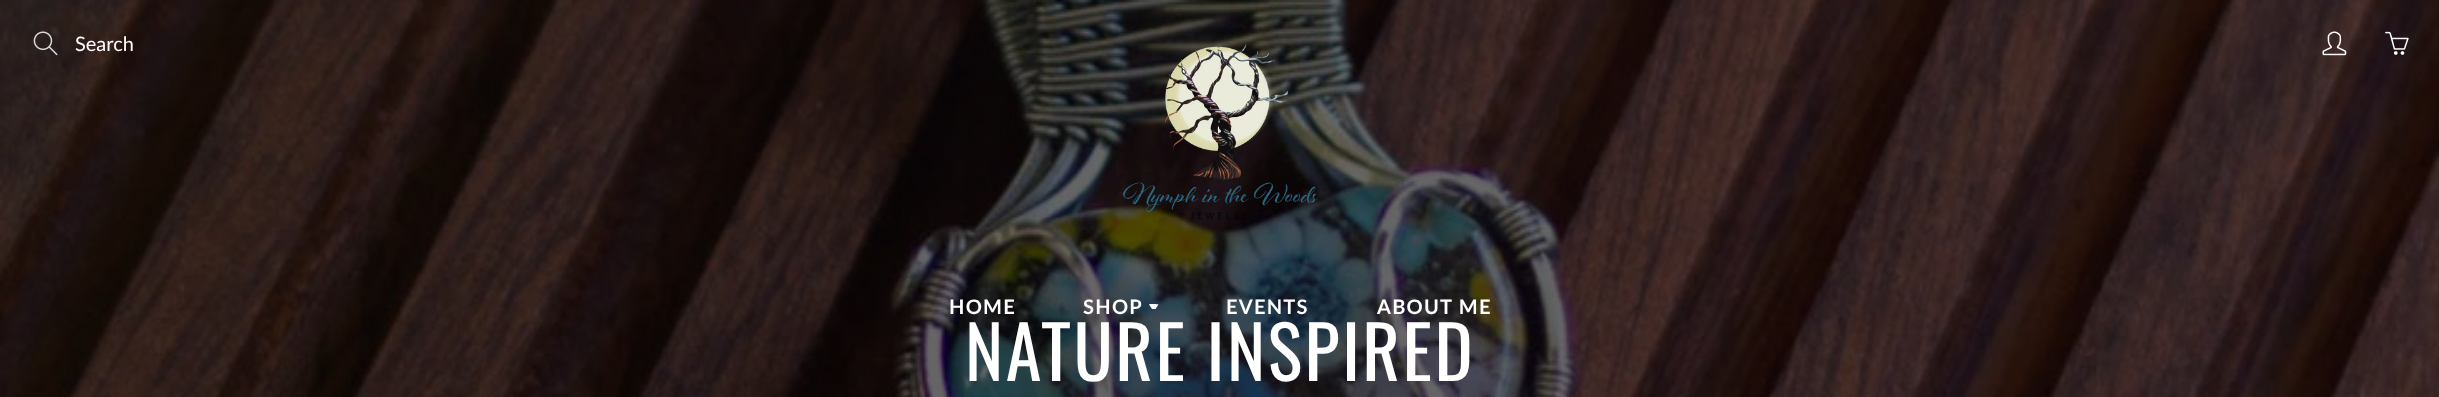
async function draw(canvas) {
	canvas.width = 2439;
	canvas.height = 397;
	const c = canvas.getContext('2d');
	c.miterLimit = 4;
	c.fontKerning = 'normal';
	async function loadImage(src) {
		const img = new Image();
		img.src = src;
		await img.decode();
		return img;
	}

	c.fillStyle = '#fff';
	c.fillRect(0, 0, 2439, 397);
	c.drawImage(await loadImage('img5.png'), 0, 0, 2439, 397);
	c.drawImage(await loadImage('img1.png'), 33, 31, 25, 25);
	c.font = '20px Lato';
	c.fillText('Search', 75, 51);
	c.drawImage(await loadImage('img2.png'), 1123, 44, 195, 176);
	c.drawImage(await loadImage('img3.png'), 2322, 31, 25, 25);
	c.drawImage(await loadImage('img4.png'), 2385, 31, 24, 24);
	c.letterSpacing = '1.25px';
	c.font = 'bold 20px Lato';
	c.fillText('HOME', 949, 314);
	c.fillText('SHOP', 1083, 314);
	c.beginPath();
	c.moveTo(1150, 304);
	c.bezierCurveTo(1152, 304, 1156.5, 303.5, 1158.5, 304.5);
	c.lineTo(1155.5, 309);
	c.lineTo(1152, 309);
	c.lineTo(1149, 304.5);
	c.closePath();
	c.fill();
	c.fillText('EVENTS', 1226, 314);
	c.fillText('ABOUT ME', 1377, 314);
	c.letterSpacing = '2.5px';
	c.font = '72.5px Oswald';
	c.fillText('NATURE INSPIRED', 965, 381);
}

draw(document.querySelector('canvas'));
